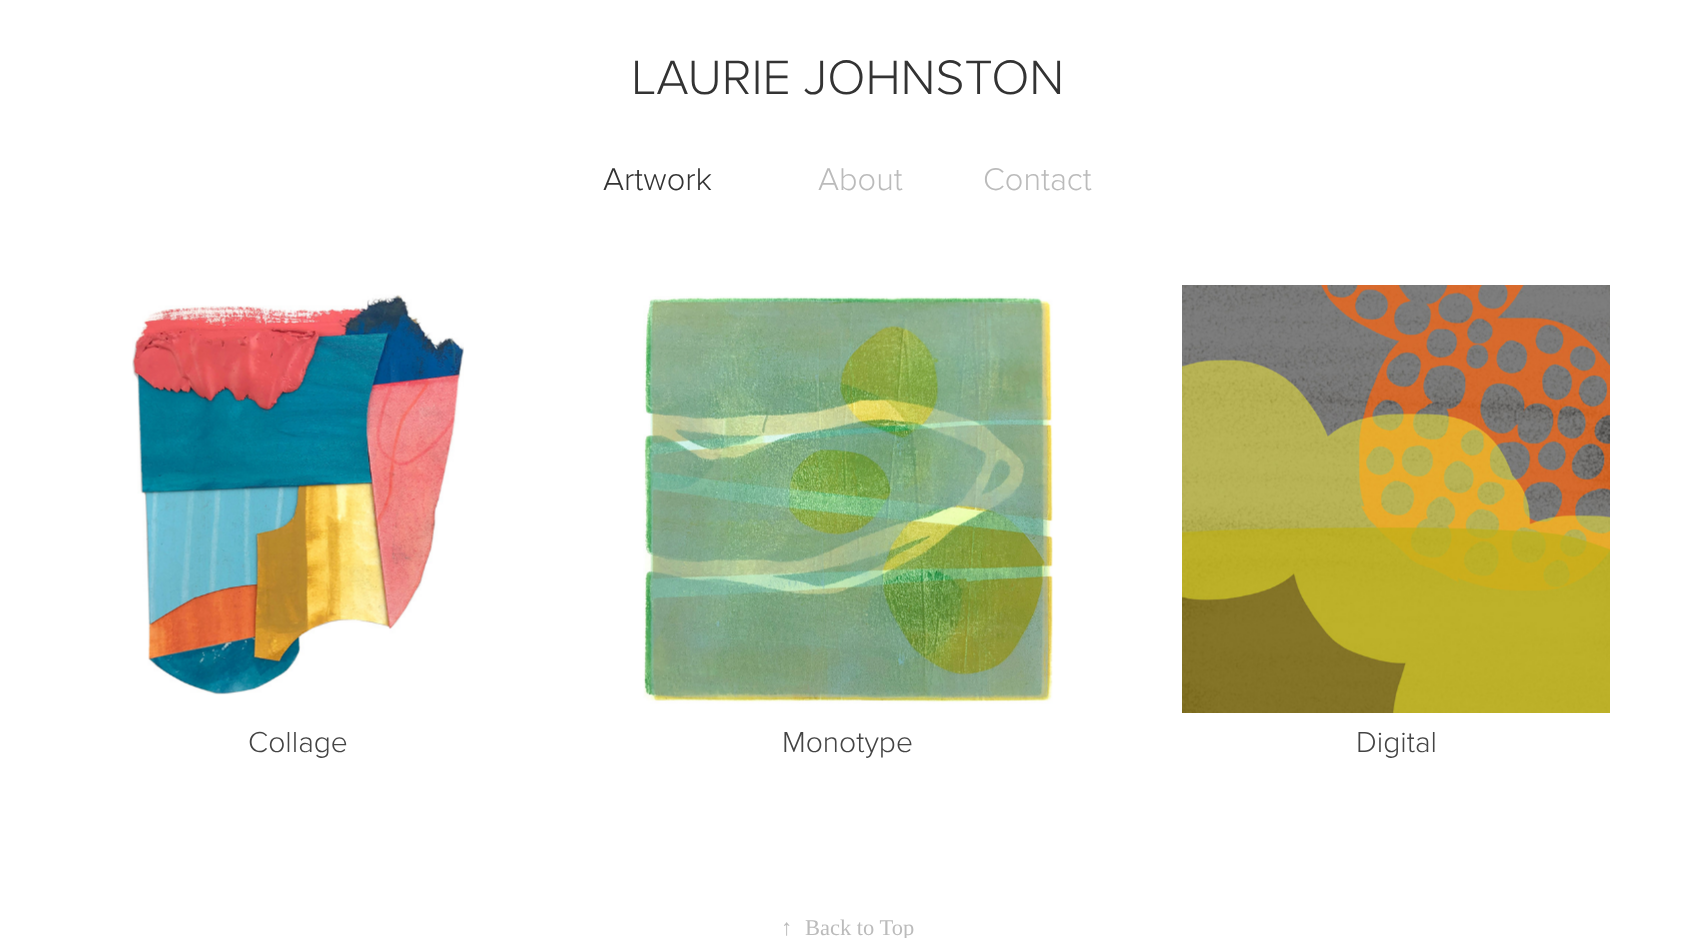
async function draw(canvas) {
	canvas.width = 1694;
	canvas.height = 938;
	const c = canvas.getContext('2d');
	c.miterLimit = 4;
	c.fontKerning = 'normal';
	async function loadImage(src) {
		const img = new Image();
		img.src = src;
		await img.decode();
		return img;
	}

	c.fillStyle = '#fff';
	c.fillRect(0, 0, 1694, 938);
	c.font = '300 50px Proxima Nova';
	c.fillStyle = '#333';
	c.fillText('LAURIE JOHNSTON', 631, 94);
	c.font = '300 32.5px Proxima Nova';
	c.fillText('Artwork', 603, 190);
	c.fillStyle = '#bbb';
	c.fillText('About', 818, 190);
	c.fillText('Contact', 983, 190);
	c.drawImage(await loadImage('img1.png'), 132, 294, 332, 401);
	c.font = '300 30px Proxima Nova';
	c.fillStyle = '#444';
	c.fillText('Collage', 248, 752);
	c.drawImage(await loadImage('img2.png'), 643, 296, 410, 408);
	c.fillText('Monotype', 782, 752);
	c.drawImage(await loadImage('img3.png'), 1182, 285, 428, 428);
	c.fillText('Digital', 1356, 752);
	c.font = '22.5px Liberation Serif';
	c.fillStyle = '#bbb';
	c.fillText('↑', 781, 935);
	c.fillText('Back to Top', 805, 935);
}

draw(document.querySelector('canvas'));
